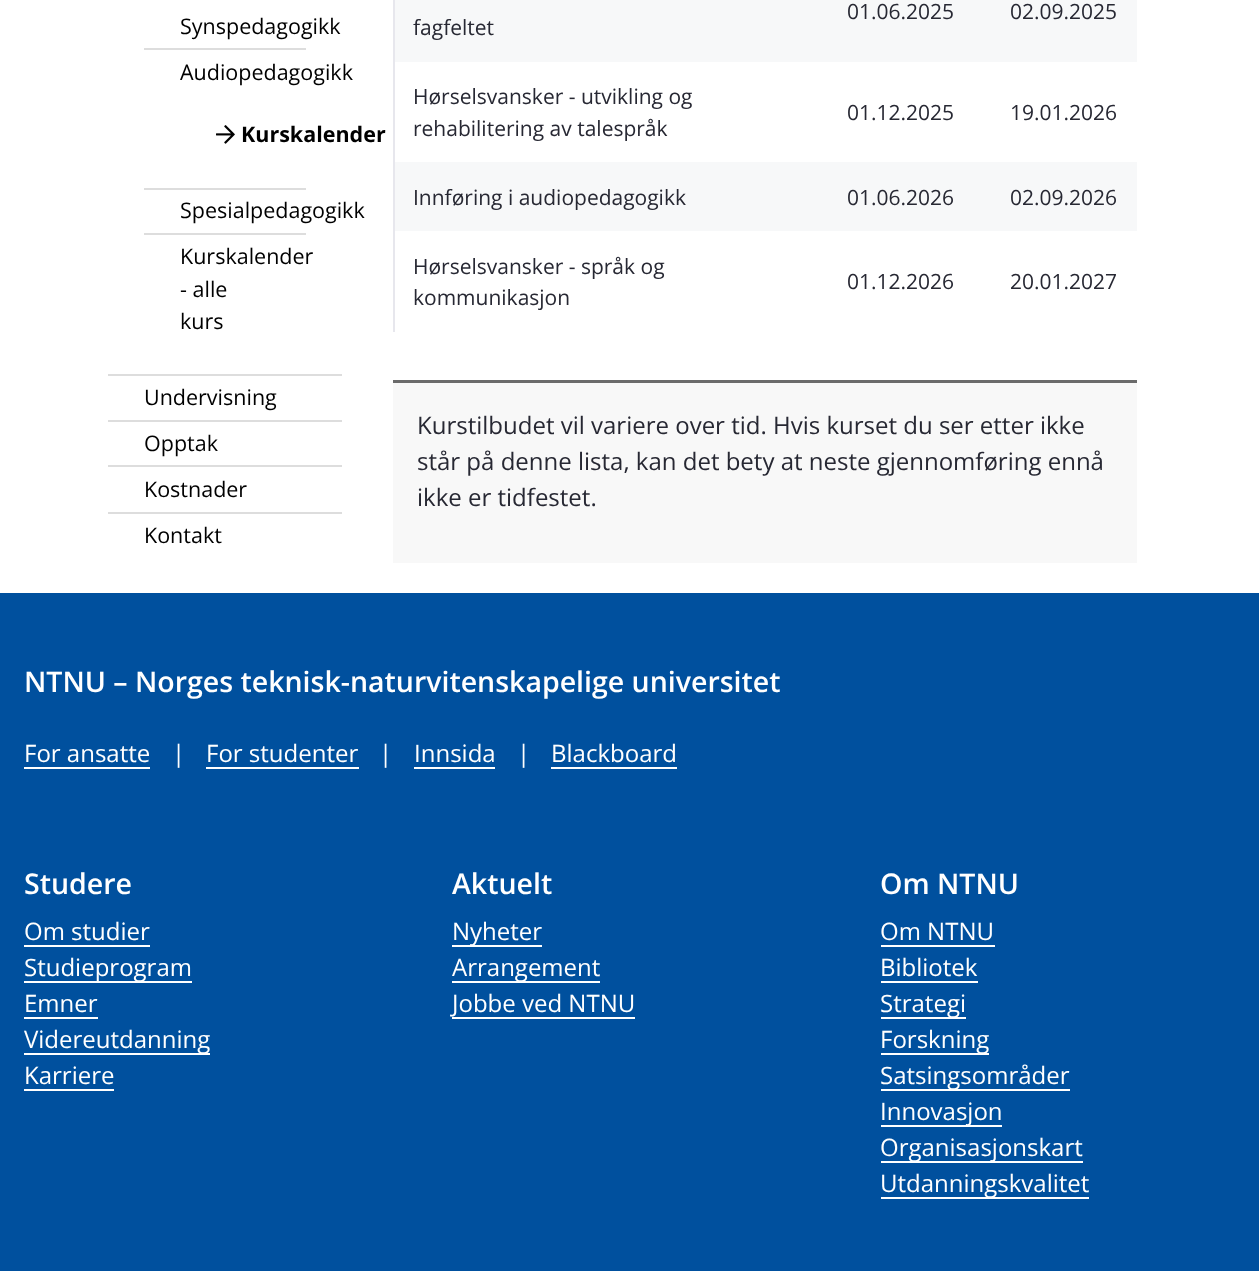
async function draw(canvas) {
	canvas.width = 1259;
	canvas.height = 1271;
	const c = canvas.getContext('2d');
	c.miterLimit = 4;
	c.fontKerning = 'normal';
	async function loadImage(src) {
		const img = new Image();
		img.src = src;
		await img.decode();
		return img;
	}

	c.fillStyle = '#fff';
	c.fillRect(0, 0, 1259, 1271);
	c.fillStyle = '#ddd';
	c.fillRect(108, 374, 234, 2);
	c.fillRect(144, 48, 162, 2);
	c.font = '21.5px Open Sans';
	c.fillStyle = '#000';
	c.fillText('Synspedagogikk', 180, 34);
	c.fillStyle = '#ddd';
	c.fillRect(144, 188, 162, 2);
	c.fillStyle = '#000';
	c.fillText('Audiopedagogikk', 180, 80);
	c.drawImage(await loadImage('img1.png'), 216, 125, 19, 19);
	c.font = 'bold 21.5px Open Sans';
	c.fillText('Kurskalender', 241, 142);
	c.fillStyle = '#ddd';
	c.fillRect(144, 233, 162, 2);
	c.font = '21.5px Open Sans';
	c.fillStyle = '#000';
	for (const [text, x, y] of [
		['Spesialpedagogikk', 180, 218],
		['Kurskalender', 180, 264],
		['- alle', 180, 297],
		['kurs', 180, 329],
	]) {
		c.fillText(text, x, y);
	}
	c.fillStyle = '#ddd';
	c.fillRect(108, 420, 234, 2);
	c.fillStyle = '#000';
	c.fillText('Undervisning', 144, 405);
	c.fillStyle = '#ddd';
	c.fillRect(108, 465, 234, 2);
	c.fillStyle = '#000';
	c.fillText('Opptak', 144, 451);
	c.fillStyle = '#ddd';
	c.fillRect(108, 512, 234, 2);
	c.fillStyle = '#000';
	c.fillText('Kostnader', 144, 497);
	c.fillText('Kontakt', 144, 543);
	c.fillStyle = '#e7e7ed';
	c.fillRect(393, 0, 2, 332);
	c.fillStyle = '#f7f8f9';
	c.fillRect(395, 0, 742, 62);
	c.font = '21px Open Sans';
	c.fillStyle = '#272833';
	for (const [text, x, y] of [
		['01.06.2025', 847, 19],
		['02.09.2025', 1010, 19],
		['fagfeltet', 413, 35],
		['Hørselsvansker - utvikling og', 413, 104],
		['rehabilitering av talespråk', 413, 136],
		['01.12.2025', 847, 120],
		['19.01.2026', 1010, 120],
	]) {
		c.fillText(text, x, y);
	}
	c.fillStyle = '#f7f8f9';
	c.fillRect(395, 162, 742, 69);
	c.fillStyle = '#272833';
	for (const [text, x, y] of [
		['Innføring i audiopedagogikk', 413, 205],
		['01.06.2026', 847, 205],
		['02.09.2026', 1010, 205],
		['Hørselsvansker - språk og', 413, 274],
		['kommunikasjon', 413, 305],
		['01.12.2026', 847, 289],
		['20.01.2027', 1010, 289],
	]) {
		c.fillText(text, x, y);
	}
	c.fillStyle = '#f8f8f8';
	c.fillRect(393, 383, 744, 180);
	c.fillStyle = '#6b6b6b';
	c.fillRect(393, 380, 744, 3);
	c.font = '24px Open Sans';
	c.fillStyle = '#272833';
	for (const [text, x, y] of [
		['Kurstilbudet vil variere over tid. Hvis kurset du ser etter ikke', 417, 434],
		['står på denne lista, kan det bety at neste gjennomføring ennå', 417, 470],
		['ikke er tidfestet.', 417, 506],
	]) {
		c.fillText(text, x, y);
	}
	c.fillStyle = '#00509e';
	c.fillRect(0, 593, 1259, 678);
	c.font = '600 28.5px Open Sans';
	c.fillStyle = '#fff';
	c.fillText('NTNU – Norges teknisk-naturvitenskapelige universitet', 24, 692);
	c.font = '24px Open Sans';
	c.fillText('For ansatte', 24, 762);
	c.fillRect(24, 767, 126, 2);
	c.fillText('|', 172, 762);
	c.fillText('For studenter', 206, 762);
	c.fillRect(206, 767, 153, 2);
	c.fillText('|', 379, 762);
	c.fillText('Innsida', 414, 762);
	c.fillRect(414, 767, 81, 2);
	c.fillText('|', 517, 762);
	c.fillText('Blackboard', 551, 762);
	c.fillRect(551, 767, 126, 2);
	c.font = '600 28.5px Open Sans';
	c.fillText('Studere', 24, 894);
	c.font = '24px Open Sans';
	c.fillText('Om studier', 24, 940);
	c.fillRect(24, 945, 126, 2);
	c.fillRect(24, 981, 168, 2);
	c.fillText('Studieprogram', 24, 976);
	c.fillText('Emner', 24, 1012);
	c.fillRect(24, 1017, 74, 2);
	c.fillRect(24, 1053, 186, 2);
	c.fillText('Videreutdanning', 24, 1048);
	c.fillText('Karriere', 24, 1084);
	c.fillRect(24, 1089, 90, 2);
	c.font = '600 28.5px Open Sans';
	c.fillText('Aktuelt', 452, 894);
	c.fillRect(452, 945, 90, 2);
	c.font = '24px Open Sans';
	c.fillText('Nyheter', 452, 940);
	c.fillRect(452, 981, 148, 2);
	c.fillText('Arrangement', 452, 976);
	c.fillText('Jobbe ved NTNU', 452, 1012);
	c.fillRect(452, 1017, 183, 2);
	c.font = '600 28.5px Open Sans';
	c.fillText('Om NTNU', 880, 894);
	c.font = '24px Open Sans';
	c.fillText('Om NTNU', 880, 940);
	c.fillRect(881, 945, 114, 2);
	c.fillText('Bibliotek', 880, 976);
	c.fillRect(881, 981, 97, 2);
	c.fillRect(881, 1017, 85, 2);
	c.fillText('Strategi', 880, 1012);
	c.fillRect(881, 1053, 108, 2);
	c.fillText('Forskning', 880, 1048);
	c.fillRect(881, 1089, 189, 2);
	c.fillText('Satsingsområder', 880, 1084);
	c.fillRect(881, 1125, 121, 2);
	c.fillText('Innovasjon', 880, 1120);
	c.fillRect(881, 1161, 202, 2);
	c.fillText('Organisasjonskart', 880, 1156);
	c.fillRect(881, 1197, 208, 2);
	c.fillText('Utdanningskvalitet', 880, 1192);
}

draw(document.querySelector('canvas'));
